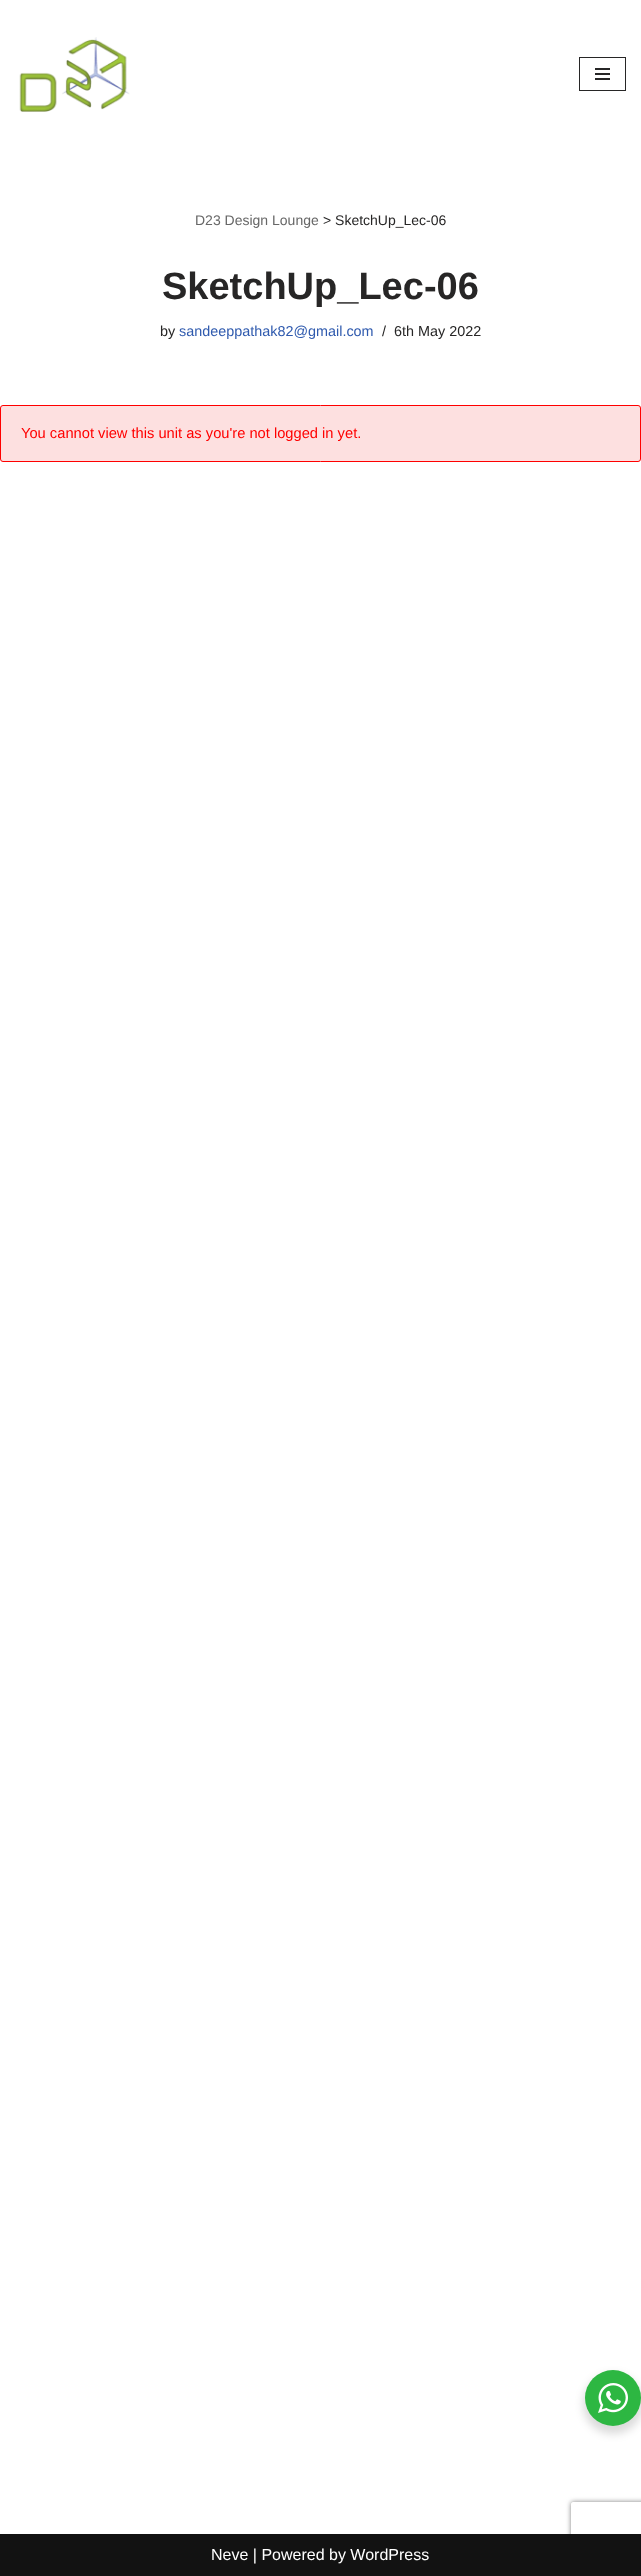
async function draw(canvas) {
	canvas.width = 641;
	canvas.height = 2576;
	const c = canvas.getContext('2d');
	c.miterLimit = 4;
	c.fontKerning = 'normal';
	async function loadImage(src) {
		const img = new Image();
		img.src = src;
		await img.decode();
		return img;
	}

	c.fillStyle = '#fff';
	c.fillRect(0, 0, 641, 2576);
	c.drawImage(await loadImage('img1.png'), 19, 37, 111, 75);
	c.strokeStyle = '#272626';
	c.strokeRect(579.5, 57.5, 46, 33);
	for (const [x, y, w, h, color] of [
		[595, 68, 15, 2, '#272626'],
		[595, 73, 15, 2, '#272626'],
		[595, 78, 15, 2, '#272626'],
	]) {
		c.fillStyle = color;
		c.fillRect(x, y, w, h);
	}
	c.font = '14px Liberation Sans';
	c.fillStyle = '#676767';
	c.fillText('D23 Design Lounge', 195, 225);
	c.fillStyle = '#272626';
	c.fillText('> SketchUp_Lec-06', 323, 225);
	c.font = 'bold 38px Liberation Sans';
	c.fillText('SketchUp_Lec-06', 162, 299);
	c.font = '14.4px Liberation Sans';
	c.fillText('by', 160, 336);
	c.fillStyle = '#2f5aae';
	c.fillText('sandeeppathak82@gmail.com', 179, 336);
	c.fillStyle = '#272626';
	c.fillText('/', 382, 336);
	c.fillText('6th May 2022', 394, 336);
	c.fillStyle = '#fde0e0';
	c.beginPath();
	c.roundRect(0.5, 405.5, 640, 56, 2.5);
	c.fill();
	c.strokeStyle = '#f00';
	c.stroke();
	c.font = '14.7px Liberation Sans';
	c.fillStyle = '#f00';
	c.fillText('You cannot view this unit as you\'re not logged in yet.', 21, 438);
	c.save();
	c.beginPath();
	c.moveTo(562, 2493);
	c.lineTo(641, 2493);
	c.lineTo(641, 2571);
	c.lineTo(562, 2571);
	c.closePath();
	c.moveTo(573, 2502);
	c.lineTo(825, 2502);
	c.bezierCurveTo(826, 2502, 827, 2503, 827, 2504);
	c.lineTo(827, 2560);
	c.bezierCurveTo(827, 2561, 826, 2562, 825, 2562);
	c.lineTo(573, 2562);
	c.bezierCurveTo(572, 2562, 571, 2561, 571, 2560);
	c.lineTo(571, 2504);
	c.bezierCurveTo(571, 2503, 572, 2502, 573, 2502);
	c.closePath();
	c.clip('evenodd');
	c.fillStyle = '#808080';
	c.filter = 'blur(2.5px)';
	c.beginPath();
	c.roundRect(571, 2502, 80, 60, 2);
	c.fill();
	c.filter = 'none';
	c.restore();
	c.fillStyle = '#121212';
	c.fillRect(0, 2534, 641, 42);
	c.font = '16px Liberation Sans';
	c.fillStyle = '#fff';
	c.fillText('Neve | Powered by WordPress', 211, 2560);
	c.fillStyle = '#00000024';
	c.filter = 'blur(4px)';
	c.beginPath();
	c.roundRect(583, 2374, 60, 60, 30);
	c.fill();
	c.filter = 'none';
	c.fillStyle = '#2db742';
	c.beginPath();
	c.arc(613, 2398, 28, 0, 2 * Math.PI);
	c.fill();
	c.drawImage(await loadImage('img2.png'), 598, 2383, 30, 30);
}

draw(document.querySelector('canvas'));
